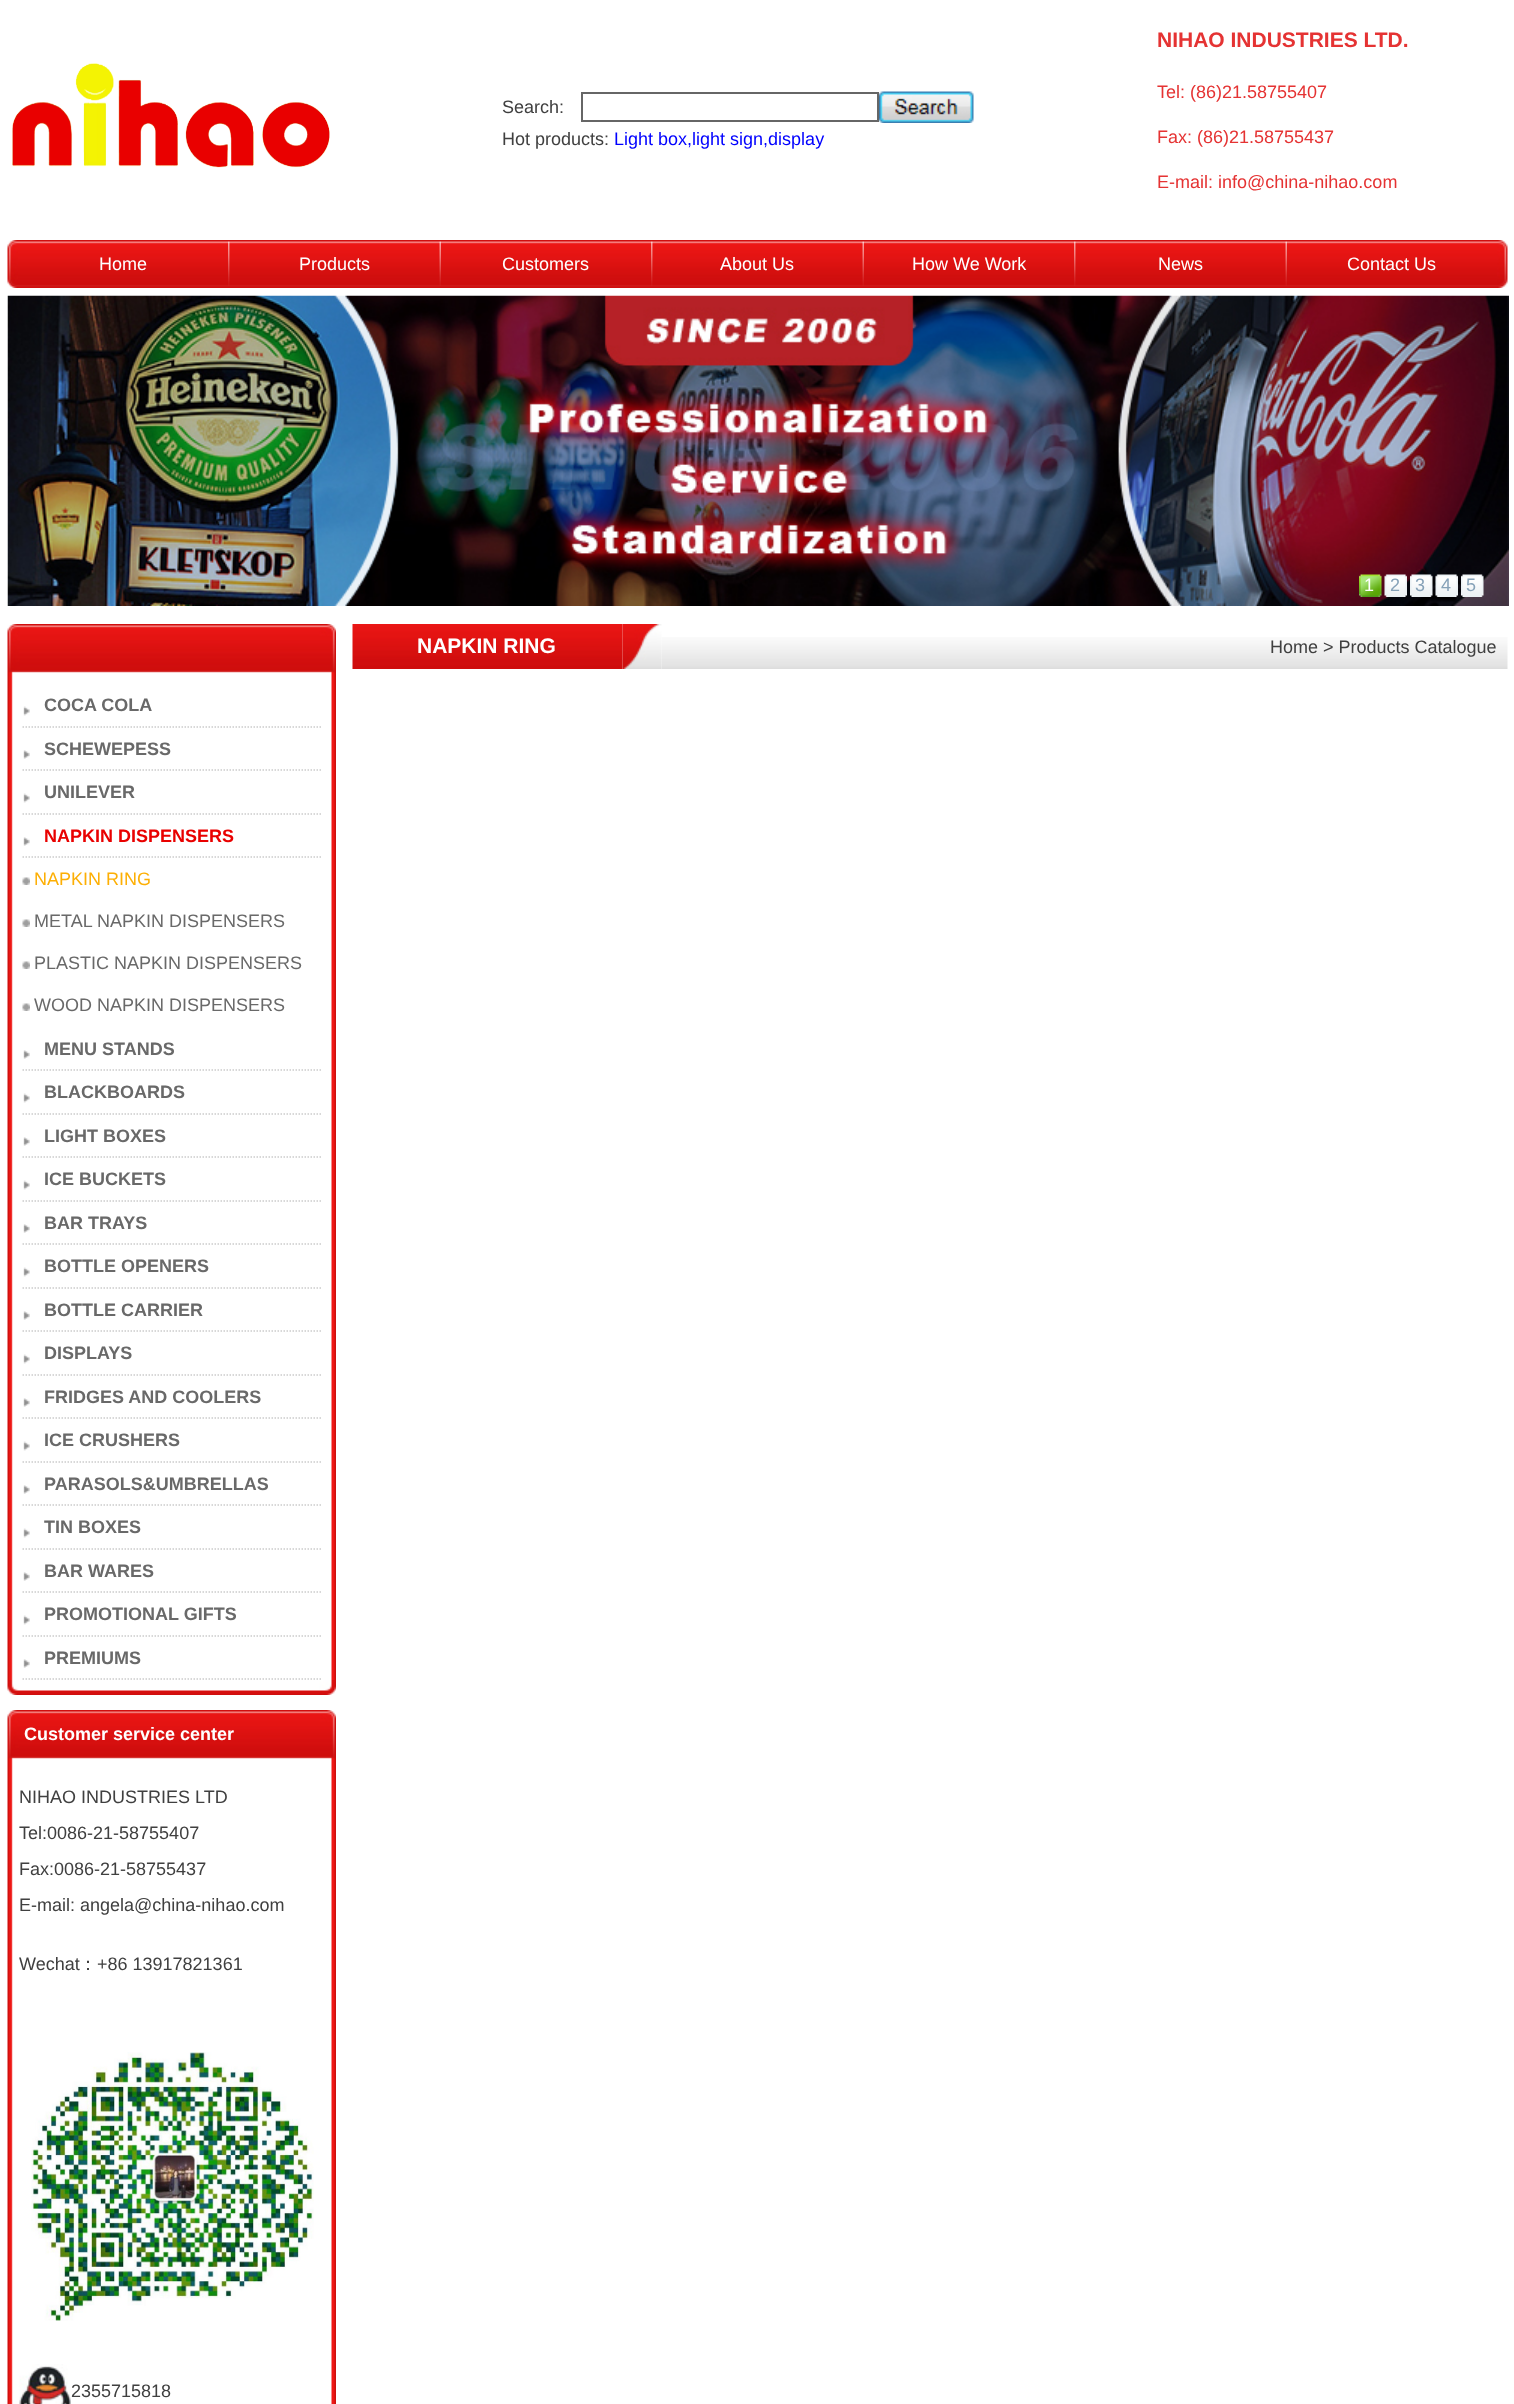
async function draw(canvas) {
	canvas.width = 1514;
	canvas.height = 2404;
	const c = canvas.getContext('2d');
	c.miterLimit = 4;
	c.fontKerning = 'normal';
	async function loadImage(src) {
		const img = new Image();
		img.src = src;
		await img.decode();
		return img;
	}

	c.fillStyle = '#fff';
	c.fillRect(0, 0, 1514, 2404);
	c.drawImage(await loadImage('img1.png'), 12, 63, 318, 105);
	c.font = '18px Liberation Sans';
	c.fillStyle = '#404040';
	c.fillText('Search:', 502, 113);
	c.strokeStyle = '#666';
	c.lineWidth = 2;
	c.strokeRect(582, 93, 296, 28);
	c.drawImage(await loadImage('img2.png'), 879, 91, 95, 32);
	c.fillText('Hot products:', 502, 145);
	c.fillStyle = '#00f';
	c.fillText('Light box,light sign,display', 614, 145);
	c.font = 'bold 21px Liberation Sans';
	c.fillStyle = '#e53333';
	c.fillText('NIHAO INDUSTRIES LTD.', 1157, 47);
	c.font = '18px Liberation Sans';
	for (const [text, x, y] of [
		['Tel: (86)21.58755407', 1157, 98],
		['Fax: (86)21.58755437', 1157, 143],
		['E-mail: info@china-nihao.com', 1157, 188],
	]) {
		c.fillText(text, x, y);
	}
	c.drawImage(await loadImage('img3.png'), 7, 240, 11, 48);
	c.drawImage(await loadImage('img4.png'), 18, 240, 1479, 48);
	c.fillStyle = '#fff';
	c.fillText('Home', 99, 270);
	c.drawImage(await loadImage('img5.png'), 228, 241, 2, 45);
	c.fillText('Products', 299, 270);
	c.drawImage(await loadImage('img6.png'), 439, 241, 2, 45);
	c.fillText('Customers', 502, 270);
	c.drawImage(await loadImage('img5.png'), 651, 241, 2, 45);
	c.fillText('About Us', 720, 270);
	c.drawImage(await loadImage('img6.png'), 862, 241, 2, 45);
	c.fillText('How We Work', 912, 270);
	c.drawImage(await loadImage('img5.png'), 1074, 241, 2, 45);
	c.fillText('News', 1158, 270);
	c.drawImage(await loadImage('img6.png'), 1285, 241, 2, 45);
	c.fillText('Contact Us', 1347, 270);
	c.drawImage(await loadImage('img7.png'), 1497, 240, 11, 48);
	c.drawImage(await loadImage('img8.png'), 7, 295, 1502, 311);
	c.drawImage(await loadImage('img9.png'), 1359, 574, 23, 23);
	c.fillText('1', 1364, 591);
	c.drawImage(await loadImage('img10.png'), 1384, 574, 23, 23);
	c.fillStyle = '#86a2b8';
	c.fillText('2', 1390, 591);
	c.drawImage(await loadImage('img11.png'), 1410, 574, 23, 23);
	c.fillText('3', 1415, 591);
	c.drawImage(await loadImage('img12.png'), 1435, 574, 23, 23);
	c.fillText('4', 1441, 591);
	c.drawImage(await loadImage('img13.png'), 1461, 574, 23, 23);
	c.fillText('5', 1466, 591);
	c.drawImage(await loadImage('img14.png'), 352, 624, 271, 45);
	c.font = 'bold 21px Liberation Sans';
	c.fillStyle = '#fff';
	c.fillText('NAPKIN RING', 417, 653);
	c.drawImage(await loadImage('img16.png'), 661, 637, 847, 32);
	c.drawImage(await loadImage('img15.png'), 622, 624, 40, 45);
	c.font = '18px Liberation Sans';
	c.fillStyle = '#404040';
	c.fillText('Home > Products Catalogue', 1270, 653);
	c.drawImage(await loadImage('img17.png'), 7, 624, 329, 60);
	c.drawImage(await loadImage('img18.png'), 7, 684, 329, 996);
	c.drawImage(await loadImage('img19.png'), 23, 706, 7, 10);
	c.beginPath();
	c.moveTo(22.5, 727);
	c.lineTo(322.5, 727);
	c.strokeStyle = '#ccc';
	c.lineWidth = 1.5;
	c.setLineDash([1.5, 1.5]);
	c.stroke();
	c.font = 'bold 18px Liberation Sans';
	c.fillStyle = '#696969';
	c.fillText('COCA COLA', 44, 711);
	c.drawImage(await loadImage('img20.png'), 23, 750, 7, 9);
	c.beginPath();
	c.moveTo(22.5, 770);
	c.lineTo(322.5, 770);
	c.stroke();
	c.fillText('SCHEWEPESS', 44, 755);
	c.drawImage(await loadImage('img19.png'), 23, 793, 7, 10);
	c.beginPath();
	c.moveTo(22.5, 814);
	c.lineTo(322.5, 814);
	c.stroke();
	c.fillText('UNILEVER', 44, 798);
	c.drawImage(await loadImage('img20.png'), 23, 837, 7, 9);
	c.beginPath();
	c.moveTo(22.5, 857);
	c.lineTo(322.5, 857);
	c.stroke();
	c.fillStyle = '#e90100';
	c.fillText('NAPKIN DISPENSERS', 44, 842);
	c.drawImage(await loadImage('img21.png'), 22, 877, 8, 8);
	c.font = '18px Liberation Sans';
	c.fillStyle = '#fdaf04';
	c.fillText('NAPKIN RING', 34, 885);
	c.drawImage(await loadImage('img21.png'), 22, 919, 8, 8);
	c.fillStyle = '#696969';
	c.fillText('METAL NAPKIN DISPENSERS', 34, 927);
	c.drawImage(await loadImage('img21.png'), 22, 961, 8, 8);
	c.fillText('PLASTIC NAPKIN DISPENSERS', 34, 969);
	c.drawImage(await loadImage('img21.png'), 22, 1003, 8, 8);
	c.fillText('WOOD NAPKIN DISPENSERS', 34, 1011);
	c.drawImage(await loadImage('img20.png'), 23, 1050, 7, 9);
	c.beginPath();
	c.moveTo(22.5, 1070);
	c.lineTo(322.5, 1070);
	c.stroke();
	c.font = 'bold 18px Liberation Sans';
	c.fillText('MENU STANDS', 44, 1055);
	c.drawImage(await loadImage('img19.png'), 23, 1093, 7, 10);
	c.beginPath();
	c.moveTo(22.5, 1114);
	c.lineTo(322.5, 1114);
	c.stroke();
	c.fillText('BLACKBOARDS', 44, 1098);
	c.drawImage(await loadImage('img20.png'), 23, 1137, 7, 9);
	c.beginPath();
	c.moveTo(22.5, 1157);
	c.lineTo(322.5, 1157);
	c.stroke();
	c.fillText('LIGHT BOXES', 44, 1142);
	c.drawImage(await loadImage('img19.png'), 23, 1180, 7, 10);
	c.beginPath();
	c.moveTo(22.5, 1201);
	c.lineTo(322.5, 1201);
	c.stroke();
	c.fillText('ICE BUCKETS', 44, 1185);
	c.drawImage(await loadImage('img20.png'), 23, 1224, 7, 9);
	c.beginPath();
	c.moveTo(22.5, 1244);
	c.lineTo(322.5, 1244);
	c.stroke();
	c.fillText('BAR TRAYS', 44, 1229);
	c.drawImage(await loadImage('img19.png'), 23, 1267, 7, 10);
	c.beginPath();
	c.moveTo(22.5, 1288);
	c.lineTo(322.5, 1288);
	c.stroke();
	c.fillText('BOTTLE OPENERS', 44, 1272);
	c.drawImage(await loadImage('img20.png'), 23, 1311, 7, 9);
	c.beginPath();
	c.moveTo(22.5, 1331);
	c.lineTo(322.5, 1331);
	c.stroke();
	c.fillText('BOTTLE CARRIER', 44, 1316);
	c.drawImage(await loadImage('img19.png'), 23, 1354, 7, 10);
	c.beginPath();
	c.moveTo(22.5, 1375);
	c.lineTo(322.5, 1375);
	c.stroke();
	c.fillText('DISPLAYS', 44, 1359);
	c.drawImage(await loadImage('img20.png'), 23, 1398, 7, 9);
	c.beginPath();
	c.moveTo(22.5, 1418);
	c.lineTo(322.5, 1418);
	c.stroke();
	c.fillText('FRIDGES AND COOLERS', 44, 1403);
	c.drawImage(await loadImage('img19.png'), 23, 1441, 7, 10);
	c.beginPath();
	c.moveTo(22.5, 1462);
	c.lineTo(322.5, 1462);
	c.stroke();
	c.fillText('ICE CRUSHERS', 44, 1446);
	c.drawImage(await loadImage('img20.png'), 23, 1485, 7, 9);
	c.beginPath();
	c.moveTo(22.5, 1505);
	c.lineTo(322.5, 1505);
	c.stroke();
	c.fillText('PARASOLS&UMBRELLAS', 44, 1490);
	c.drawImage(await loadImage('img19.png'), 23, 1528, 7, 10);
	c.beginPath();
	c.moveTo(22.5, 1549);
	c.lineTo(322.5, 1549);
	c.stroke();
	c.fillText('TIN BOXES', 44, 1533);
	c.drawImage(await loadImage('img20.png'), 23, 1572, 7, 9);
	c.beginPath();
	c.moveTo(22.5, 1592);
	c.lineTo(322.5, 1592);
	c.stroke();
	c.fillText('BAR WARES', 44, 1577);
	c.drawImage(await loadImage('img19.png'), 23, 1615, 7, 10);
	c.beginPath();
	c.moveTo(22.5, 1636);
	c.lineTo(322.5, 1636);
	c.stroke();
	c.fillText('PROMOTIONAL GIFTS', 44, 1620);
	c.drawImage(await loadImage('img20.png'), 23, 1659, 7, 9);
	c.beginPath();
	c.moveTo(22.5, 1679);
	c.lineTo(322.5, 1679);
	c.stroke();
	c.fillText('PREMIUMS', 44, 1664);
	c.drawImage(await loadImage('img22.png'), 7, 1680, 329, 15);
	c.drawImage(await loadImage('img17.png'), 7, 1710, 329, 60);
	c.fillStyle = '#fff';
	c.fillText('Customer service center', 24, 1740);
	c.drawImage(await loadImage('img23.png'), 7, 1770, 329, 634);
	c.font = '18px Liberation Sans';
	c.fillStyle = '#404040';
	for (const [text, x, y] of [
		['NIHAO INDUSTRIES LTD', 19, 1803],
		['Tel:0086-21-58755407', 19, 1839],
		['Fax:0086-21-58755437', 19, 1875],
		['E-mail: angela@china-nihao.com', 19, 1911],
		['Wechat', 19, 1970],
	]) {
		c.fillText(text, x, y);
	}
	c.font = '500 18px WenQuanYi Zen Hei';
	c.fillText('：', 79, 1970);
	c.font = '18px Liberation Sans';
	c.fillText('+86 13917821361', 97, 1970);
	c.drawImage(await loadImage('img24.png'), 31, 2052, 283, 269);
	c.drawImage(await loadImage('img25.png'), 19, 2364, 52, 40);
	c.fillText('2355715818', 71, 2397);
}

draw(document.querySelector('canvas'));
